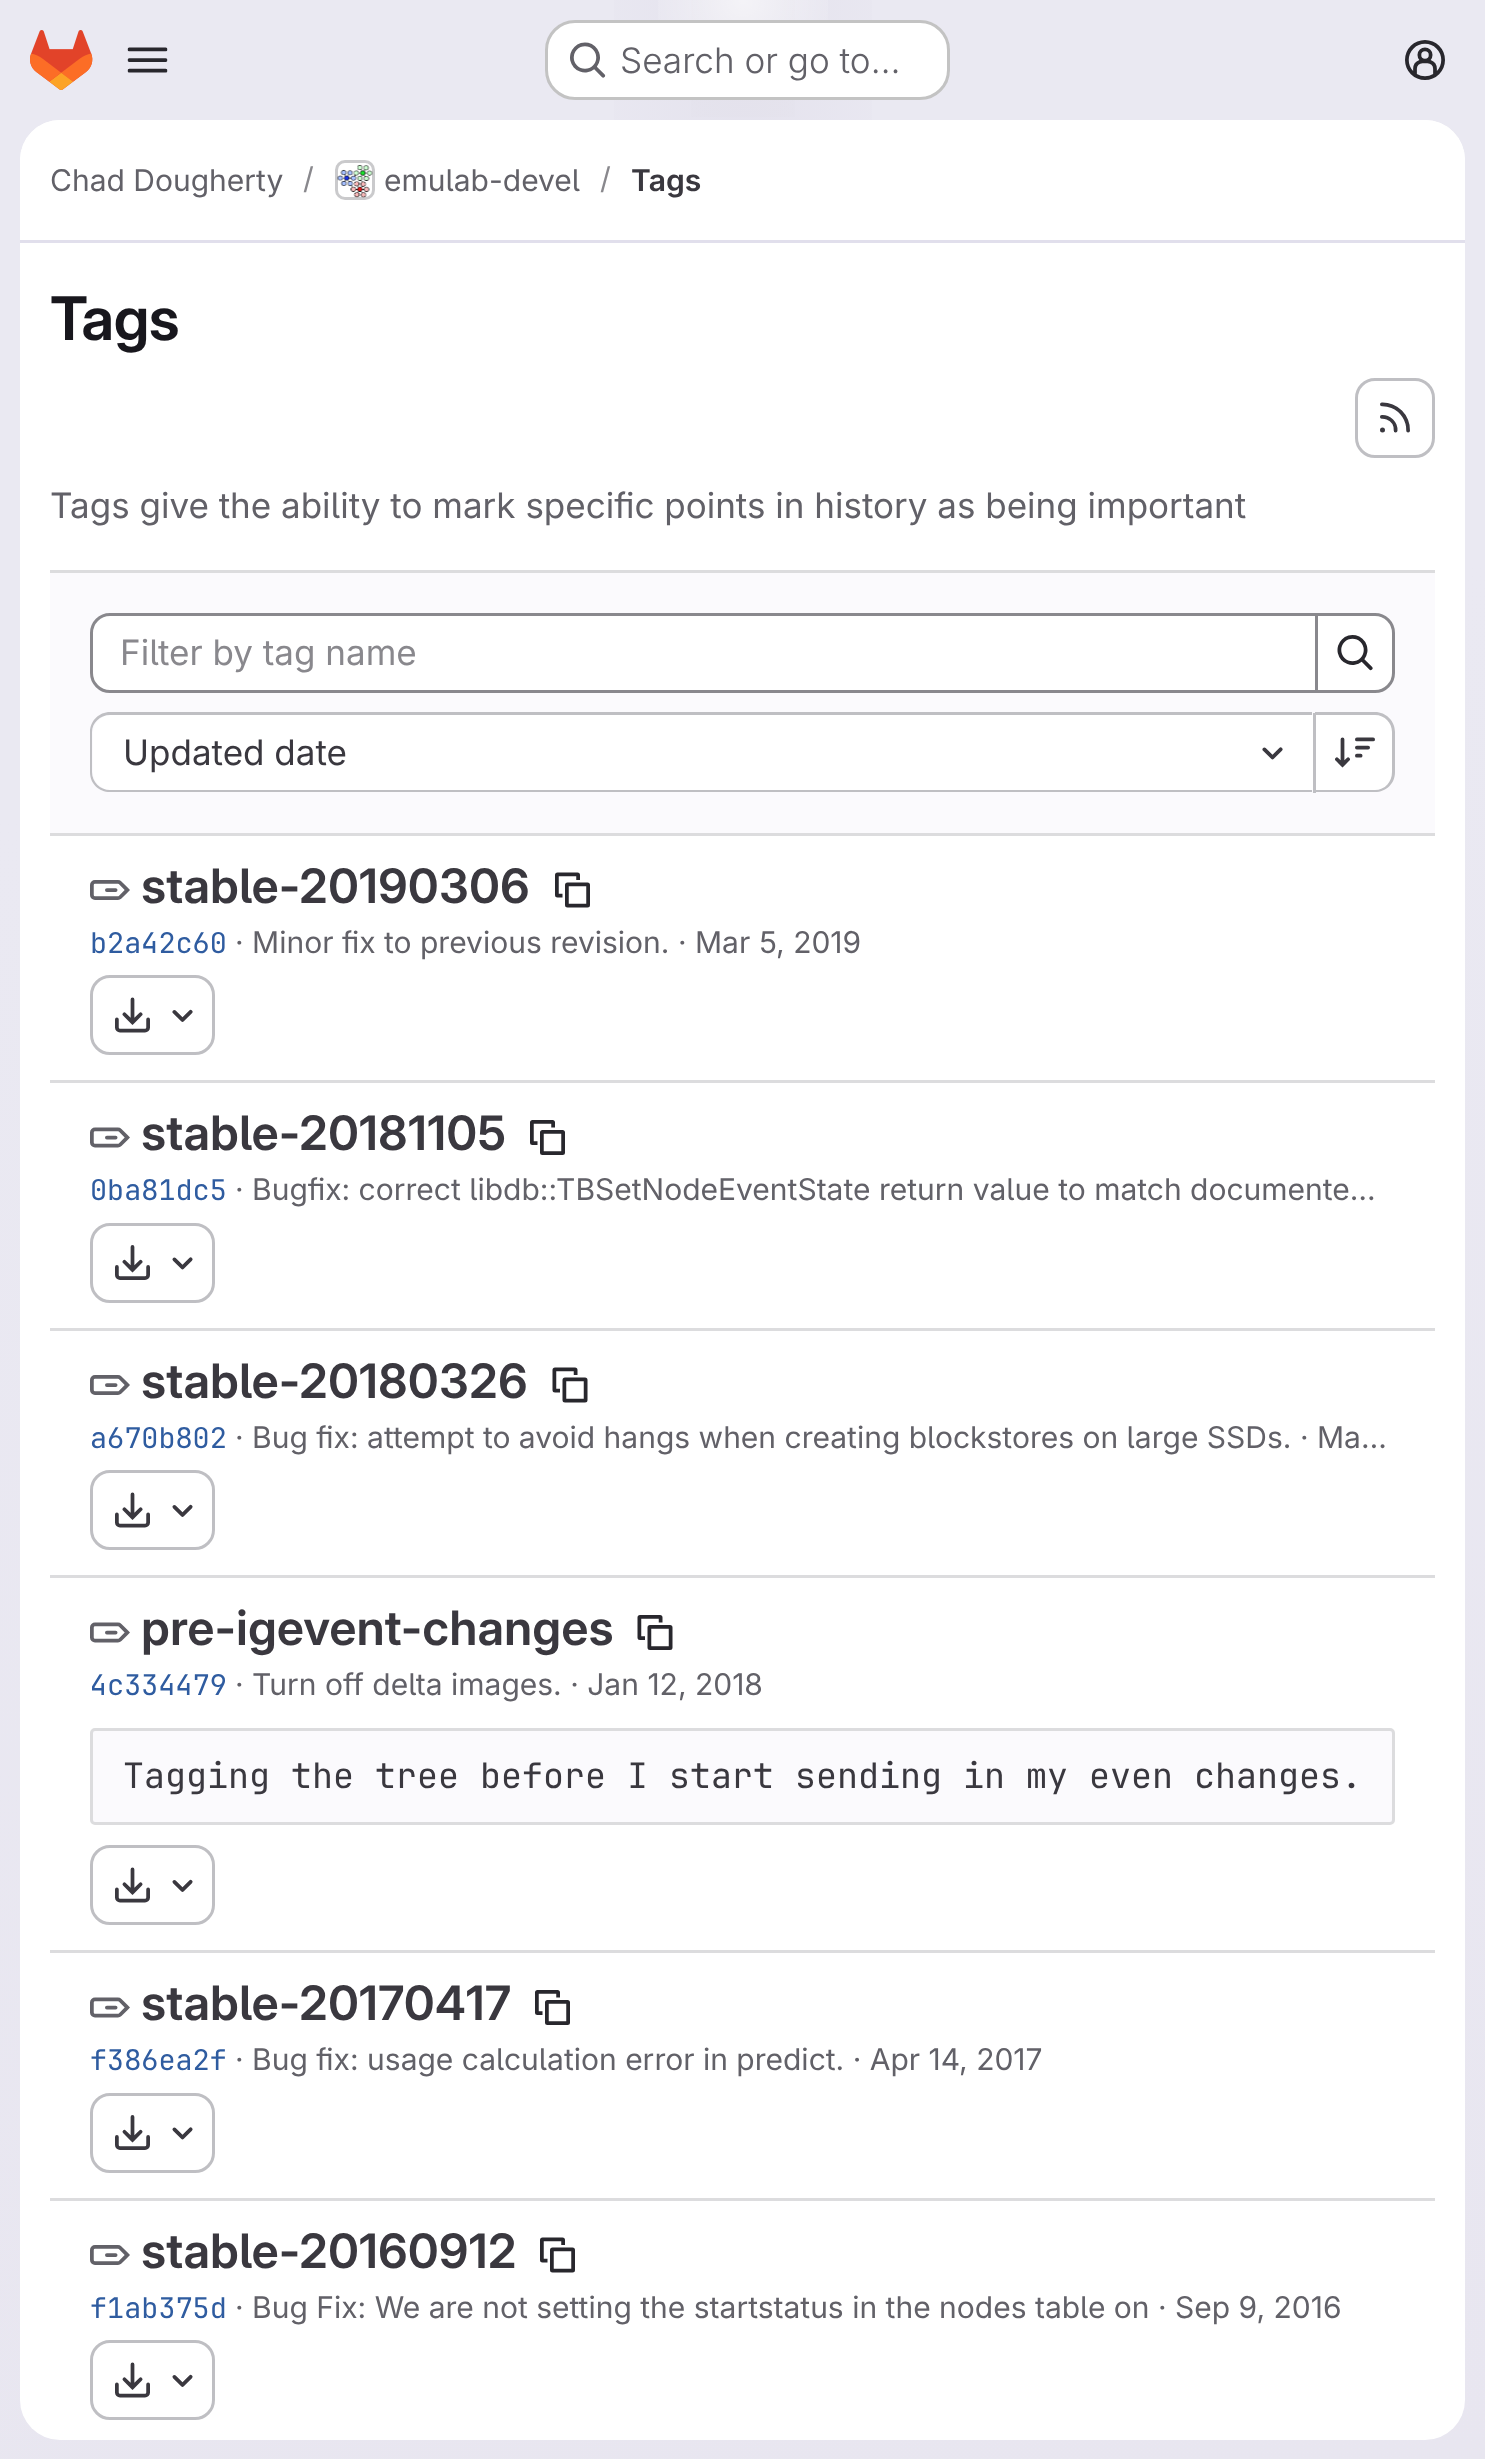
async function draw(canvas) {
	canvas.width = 1485;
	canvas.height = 2459;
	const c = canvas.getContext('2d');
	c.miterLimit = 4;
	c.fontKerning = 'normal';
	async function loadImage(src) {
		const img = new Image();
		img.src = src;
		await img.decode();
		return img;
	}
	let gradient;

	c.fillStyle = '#fff';
	c.fillRect(0, 0, 1485, 2459);
	gradient = c.createLinearGradient(975, 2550, 510, -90);
	gradient.addColorStop(0, '#e8e6f0');
	gradient.addColorStop(0.7, '#eae9f2');
	c.fillStyle = gradient;
	c.fillRect(0, 0, 1485, 2459);
	gradient = c.createRadialGradient(743, 0, 0, 743, 0, 743);
	gradient.addColorStop(0, '#e4e2ed');
	gradient.addColorStop(0.24, '#e4e2ed00');
	c.fillStyle = gradient;
	c.beginPath();
	c.rect(614, 0, 258, 120);
	c.save();
	c.clip();
	c.scale(1, 2460 / 743);
	c.fillRect(0, 0, 1485, 743);
	c.restore();
	gradient = c.createRadialGradient(743, 0, 0, 743, 0, 743);
	gradient.addColorStop(0, '#e4e2ec');
	gradient.addColorStop(0.17, '#e4e2ec00');
	c.fillStyle = gradient;
	c.beginPath();
	c.rect(691, 0, 104, 117);
	c.save();
	c.clip();
	c.scale(1, 2460 / 743);
	c.fillRect(0, 0, 1485, 743);
	c.restore();
	gradient = c.createRadialGradient(743, 0, 0, 743, 0, 2570);
	gradient.addColorStop(0, '#ffffff99');
	gradient.addColorStop(0.04, '#ffffff00');
	c.fillStyle = gradient;
	c.fillRect(658, 0, 170, 87);
	c.drawImage(await loadImage('img1.png'), 30, 30, 63, 60);
	c.drawImage(await loadImage('img2.png'), 127, 47, 41, 26);
	c.fillStyle = '#fff';
	c.beginPath();
	c.roundRect(545, 20, 405, 80, 30);
	c.fill();
	c.beginPath();
	c.roundRect(546.5, 21.5, 402, 77, 28.5);
	c.strokeStyle = '#0505063d';
	c.lineWidth = 3;
	c.stroke();
	c.drawImage(await loadImage('img3.png'), 570, 42, 36, 36);
	c.font = '300 35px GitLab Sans';
	c.fillStyle = '#626168';
	c.fillText('Search or go to…', 620, 73);
	c.drawImage(await loadImage('img4.png'), 1405, 40, 40, 40);
	c.fillStyle = '#fff';
	c.beginPath();
	c.roundRect(20, 120, 1445, 2320, 40);
	c.fill();
	c.beginPath();
	c.roundRect(20, 120, 1445, 123, [40, 40, 0, 0]);
	c.fill();
	c.fillStyle = '#e1dfec';
	c.fillRect(20, 240, 1445, 3);
	c.font = '30px GitLab Sans';
	c.fillStyle = '#626168';
	c.fillText('Chad Dougherty', 50, 191);
	c.fillStyle = '#89888d';
	c.fillText('/', 303, 189);
	c.beginPath();
	c.roundRect(336.5, 161.5, 37, 37, 8.5);
	c.strokeStyle = '#dcdcde';
	c.stroke();
	c.drawImage(await loadImage('img5.png'), 337, 165, 36, 33);
	c.beginPath();
	c.roundRect(336.5, 161.5, 37, 37, 8.5);
	c.strokeStyle = '#05050614';
	c.stroke();
	c.fillStyle = '#626168';
	c.fillText('emulab-devel', 384, 191);
	c.fillStyle = '#89888d';
	c.fillText('/', 600, 189);
	c.font = '600 30px "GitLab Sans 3"';
	c.fillStyle = '#3a383f';
	c.fillText('Tags', 631, 191);
	c.letterSpacing = '-0.5px';
	c.font = '600 60px GitLab Sans';
	c.fillStyle = '#18171d';
	c.fillText('Tags', 50, 340);
	c.beginPath();
	c.roundRect(1356.5, 379.5, 77, 77, 18.5);
	c.strokeStyle = '#bfbfc3';
	c.stroke();
	c.drawImage(await loadImage('img6.png'), 1380, 402, 30, 31);
	c.letterSpacing = '0px';
	c.font = '35px GitLab Sans';
	c.fillStyle = '#626168';
	c.fillText('Tags give the ability to mark specific points in history as being important', 50, 518);
	for (const [x, y, w, h, color] of [
		[50, 573, 1385, 260, '#fbfafd'],
		[50, 570, 1385, 3, '#dcdcde'],
		[50, 833, 1385, 3, '#dcdcde'],
	]) {
		c.fillStyle = color;
		c.fillRect(x, y, w, h);
	}
	c.fillStyle = '#fff';
	c.beginPath();
	c.roundRect(91.5, 614.5, 1225, 77, [18.5, 0, 0, 18.5]);
	c.fill();
	c.strokeStyle = '#89888d';
	c.stroke();
	c.fillStyle = '#89888d';
	c.fillText('Filter by tag name', 120, 665);
	c.fillStyle = '#fff';
	c.beginPath();
	c.roundRect(1316.5, 614.5, 77, 77, [0, 18.5, 18.5, 0]);
	c.fill();
	c.stroke();
	c.drawImage(await loadImage('img7.png'), 1337, 635, 36, 36);
	c.beginPath();
	c.roundRect(93, 715, 1220, 75, [18, 0, 0, 18]);
	c.fill();
	c.fillStyle = '#bfbfc3';
	c.beginPath();
	c.moveTo(110, 712);
	c.lineTo(1312, 712);
	c.lineTo(1312, 792);
	c.lineTo(110, 792);
	c.bezierCurveTo(99, 792, 90, 784, 90, 772);
	c.lineTo(90, 732);
	c.bezierCurveTo(90, 721, 99, 712, 110, 712);
	c.closePath();
	c.moveTo(110, 715);
	c.lineTo(1312, 715);
	c.lineTo(1312, 790);
	c.lineTo(110, 790);
	c.bezierCurveTo(100, 790, 92, 782, 92, 772);
	c.lineTo(92, 732);
	c.bezierCurveTo(92, 723, 100, 715, 110, 715);
	c.closePath();
	c.fill('evenodd');
	c.fillStyle = '#3a383f';
	c.fillText('Updated date', 123, 765);
	c.drawImage(await loadImage('img8.png'), 1262, 747, 21, 13);
	c.fillStyle = '#fff';
	c.beginPath();
	c.roundRect(1315, 715, 78, 75, [0, 18, 18, 0]);
	c.fill();
	c.fillStyle = '#bfbfc3';
	c.beginPath();
	c.moveTo(1315, 712);
	c.lineTo(1375, 712);
	c.bezierCurveTo(1386, 712, 1395, 721, 1395, 732);
	c.lineTo(1395, 772);
	c.bezierCurveTo(1395, 784, 1386, 792, 1375, 792);
	c.lineTo(1315, 792);
	c.closePath();
	c.moveTo(1315, 715);
	c.lineTo(1375, 715);
	c.bezierCurveTo(1385, 715, 1392, 723, 1392, 732);
	c.lineTo(1392, 772);
	c.bezierCurveTo(1392, 782, 1385, 790, 1375, 790);
	c.lineTo(1315, 790);
	c.closePath();
	c.fill('evenodd');
	c.fillRect(1313, 713, 3, 80);
	c.drawImage(await loadImage('img9.png'), 1335, 737, 40, 31);
	c.fillStyle = '#dcdcde';
	c.fillRect(50, 1080, 1385, 3);
	c.drawImage(await loadImage('img10.png'), 90, 880, 40, 20);
	c.font = '600 47.5px "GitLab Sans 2"';
	c.fillStyle = '#3a383f';
	c.fillText('stable-20190306', 141, 903);
	c.drawImage(await loadImage('img11.png'), 555, 872, 35, 36);
	c.font = '28.5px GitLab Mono';
	c.fillStyle = '#2f5ca0';
	c.fillText('b2a42c60', 90, 953);
	c.font = '30px GitLab Sans';
	c.fillStyle = '#626168';
	c.fillText('· Minor fix to previous revision. · Mar 5, 2019', 235, 953);
	c.beginPath();
	c.roundRect(91.5, 976.5, 122, 77, 18.5);
	c.strokeStyle = '#bfbfc3';
	c.stroke();
	c.drawImage(await loadImage('img12.png'), 115, 997, 35, 36);
	c.drawImage(await loadImage('img13.png'), 172, 1009, 21, 13);
	c.fillStyle = '#dcdcde';
	c.fillRect(50, 1328, 1385, 3);
	c.drawImage(await loadImage('img14.png'), 90, 1127, 40, 21);
	c.font = '600 47.5px "GitLab Sans 2"';
	c.fillStyle = '#3a383f';
	c.fillText('stable-20181105', 141, 1150);
	c.drawImage(await loadImage('img15.png'), 530, 1120, 35, 35);
	c.font = '28.5px GitLab Mono';
	c.fillStyle = '#2f5ca0';
	c.fillText('0ba81dc5', 90, 1200);
	c.font = '30px GitLab Sans';
	c.fillStyle = '#626168';
	c.fillText('· Bugfix: correct libdb::TBSetNodeEventState return value to match documente…', 235, 1200);
	c.beginPath();
	c.roundRect(91.5, 1224.5, 122, 77, 18.5);
	c.stroke();
	c.drawImage(await loadImage('img16.png'), 115, 1245, 35, 35);
	c.drawImage(await loadImage('img17.png'), 172, 1257, 21, 13);
	c.fillStyle = '#dcdcde';
	c.fillRect(50, 1575, 1385, 3);
	c.drawImage(await loadImage('img10.png'), 90, 1375, 40, 20);
	c.font = '600 47.5px "GitLab Sans 2"';
	c.fillStyle = '#3a383f';
	c.fillText('stable-20180326', 141, 1398);
	c.drawImage(await loadImage('img18.png'), 552, 1367, 36, 36);
	c.font = '28.5px GitLab Mono';
	c.fillStyle = '#2f5ca0';
	c.fillText('a670b802', 90, 1448);
	c.font = '30px GitLab Sans';
	c.fillStyle = '#626168';
	c.fillText('· Bug fix: attempt to avoid hangs when creating blockstores on large SSDs. · Ma…', 235, 1448);
	c.beginPath();
	c.roundRect(91.5, 1471.5, 122, 77, 18.5);
	c.stroke();
	c.drawImage(await loadImage('img19.png'), 115, 1492, 35, 36);
	c.drawImage(await loadImage('img20.png'), 172, 1504, 21, 13);
	c.fillStyle = '#dcdcde';
	c.fillRect(50, 1950, 1385, 3);
	c.drawImage(await loadImage('img14.png'), 90, 1622, 40, 21);
	c.font = '600 47.5px "GitLab Sans 2"';
	c.fillStyle = '#3a383f';
	c.fillText('pre-igevent-changes', 141, 1645);
	c.drawImage(await loadImage('img21.png'), 637, 1615, 36, 35);
	c.font = '28.5px GitLab Mono';
	c.fillStyle = '#2f5ca0';
	c.fillText('4c334479', 90, 1695);
	c.font = '30px GitLab Sans';
	c.fillStyle = '#626168';
	c.fillText('· Turn off delta images. · Jan 12, 2018', 235, 1695);
	c.fillStyle = '#fbfafd';
	c.beginPath();
	c.roundRect(91.5, 1729.5, 1302, 94, 3.5);
	c.fill();
	c.strokeStyle = '#dcdcde';
	c.stroke();
	c.font = '35px GitLab Mono';
	c.fillStyle = '#3a383f';
	c.fillText('Tagging the tree before I start sending in my even changes.', 123, 1788);
	c.beginPath();
	c.roundRect(91.5, 1846.5, 122, 77, 18.5);
	c.strokeStyle = '#bfbfc3';
	c.stroke();
	c.drawImage(await loadImage('img22.png'), 115, 1867, 35, 36);
	c.drawImage(await loadImage('img20.png'), 172, 1879, 21, 13);
	c.fillStyle = '#dcdcde';
	c.fillRect(50, 2198, 1385, 3);
	c.drawImage(await loadImage('img14.png'), 90, 1997, 40, 21);
	c.font = '600 47.5px "GitLab Sans 2"';
	c.fillStyle = '#3a383f';
	c.fillText('stable-20170417', 141, 2020);
	c.drawImage(await loadImage('img15.png'), 535, 1990, 35, 35);
	c.font = '28.5px GitLab Mono';
	c.fillStyle = '#2f5ca0';
	c.fillText('f386ea2f', 90, 2070);
	c.font = '30px GitLab Sans';
	c.fillStyle = '#626168';
	c.fillText('· Bug fix: usage calculation error in predict. · Apr 14, 2017', 235, 2070);
	c.beginPath();
	c.roundRect(91.5, 2094.5, 122, 77, 18.5);
	c.stroke();
	c.drawImage(await loadImage('img23.png'), 115, 2115, 35, 35);
	c.drawImage(await loadImage('img17.png'), 172, 2127, 21, 13);
	c.drawImage(await loadImage('img10.png'), 90, 2245, 40, 20);
	c.font = '600 47.5px "GitLab Sans 2"';
	c.fillStyle = '#3a383f';
	c.fillText('stable-20160912', 141, 2268);
	c.drawImage(await loadImage('img11.png'), 540, 2237, 35, 36);
	c.font = '28.5px GitLab Mono';
	c.fillStyle = '#2f5ca0';
	c.fillText('f1ab375d', 90, 2318);
	c.font = '30px GitLab Sans';
	c.fillStyle = '#626168';
	c.fillText('· Bug Fix: We are not setting the startstatus in the nodes table on · Sep 9, 2016', 235, 2318);
	c.beginPath();
	c.roundRect(91.5, 2341.5, 122, 77, 18.5);
	c.stroke();
	c.drawImage(await loadImage('img22.png'), 115, 2362, 35, 36);
	c.drawImage(await loadImage('img20.png'), 172, 2374, 21, 13);
}

draw(document.querySelector('canvas'));
